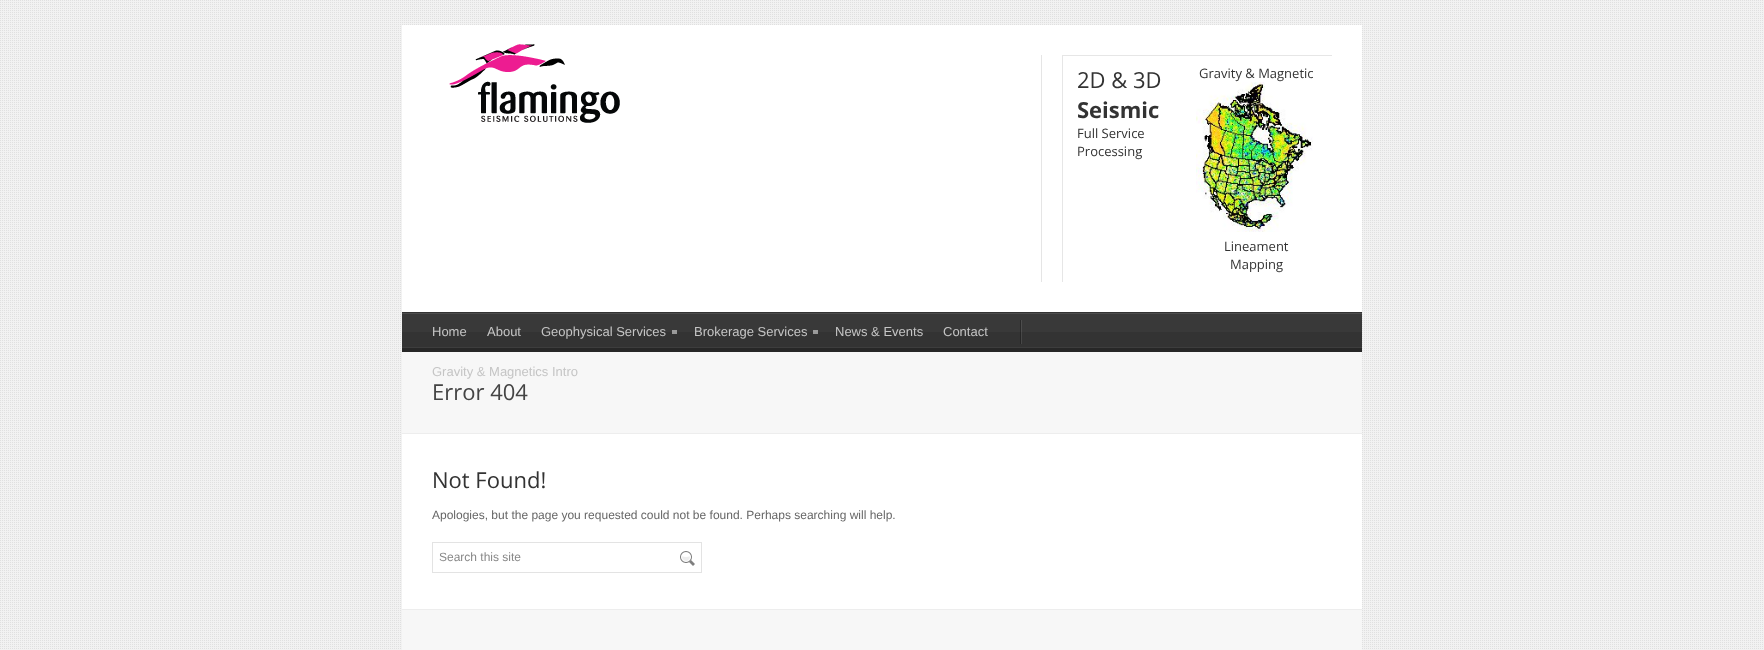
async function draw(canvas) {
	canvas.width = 1764;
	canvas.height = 650;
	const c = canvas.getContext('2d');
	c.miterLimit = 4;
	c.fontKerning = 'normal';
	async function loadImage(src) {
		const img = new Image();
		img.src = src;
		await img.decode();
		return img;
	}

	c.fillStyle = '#f2f2f2';
	c.fillRect(0, 0, 1764, 650);
	c.drawImage(await loadImage('img1.png'), 0, 0, 1763, 649);
	c.fillStyle = '#fff';
	c.fillRect(402, 25, 960, 287);
	c.drawImage(await loadImage('img2.png'), 449, 44, 171, 79);
	for (const [x, y, w, h, color] of [
		[1041, 55, 1, 227, '#e5e5e5'],
		[1062, 55, 270, 1, '#e6e6e6'],
		[1062, 55, 1, 227, '#e6e6e6'],
	]) {
		c.fillStyle = color;
		c.fillRect(x, y, w, h);
	}
	c.font = '22px Open Sans';
	c.fillStyle = '#333';
	c.fillText('2D & 3D', 1077, 88);
	c.font = 'bold 22px Open Sans';
	c.fillText('Seismic', 1077, 118);
	c.font = '13px Open Sans';
	for (const [text, x, y] of [
		['Full Service', 1077, 138],
		['Processing', 1077, 156],
		['Gravity & Magnetic', 1199, 78],
	]) {
		c.fillText(text, x, y);
	}
	c.drawImage(await loadImage('img3.png'), 1196, 82, 117, 150);
	c.fillText('Lineament', 1224, 251);
	c.fillText('Mapping', 1230, 269);
	c.fillRect(402, 312, 960, 40);
	c.drawImage(await loadImage('img4.png'), 402, 313, 960, 39);
	c.font = '13px Liberation Sans';
	c.fillStyle = '#c5c5c5';
	c.fillText('Home', 432, 336);
	c.fillText('About', 487, 336);
	c.fillStyle = '#ffffff80';
	c.fillRect(672, 330, 5, 4);
	c.fillStyle = '#c5c5c5';
	c.fillText('Geophysical Services', 541, 336);
	c.fillStyle = '#ffffff80';
	c.fillRect(813, 330, 5, 4);
	c.fillStyle = '#c5c5c5';
	for (const [text, x, y] of [
		['Brokerage Services', 694, 336],
		['News & Events', 835, 336],
		['Contact', 943, 336],
	]) {
		c.fillText(text, x, y);
	}
	c.fillStyle = '#f7f7f7';
	c.fillRect(402, 352, 960, 81);
	c.fillStyle = '#c5c5c5';
	c.fillText('Gravity & Magnetics Intro', 432, 376);
	c.drawImage(await loadImage('img5.png'), 1020, 320, 2, 24);
	c.fillStyle = '#ededed';
	c.fillRect(402, 433, 960, 1);
	c.font = '22px Open Sans';
	c.fillStyle = '#444';
	c.fillText('Error 404', 432, 400);
	c.fillStyle = '#fff';
	c.fillRect(402, 434, 960, 175);
	c.fillStyle = '#333';
	c.fillText('Not Found!', 432, 488);
	c.font = '12px Liberation Sans';
	c.fillStyle = '#666';
	c.fillText('Apologies, but the page you requested could not be found. Perhaps searching will help.', 432, 519);
	c.strokeStyle = '#e3e3e3';
	c.strokeRect(432.5, 542.5, 269, 30);
	c.fillStyle = '#888';
	c.fillText('Search this site', 439, 561);
	c.drawImage(await loadImage('img6.png'), 680, 551, 15, 15);
	c.fillStyle = '#f7f7f7';
	c.fillRect(402, 610, 960, 40);
	c.fillStyle = '#ededed';
	c.fillRect(402, 609, 960, 1);
}

draw(document.querySelector('canvas'));
